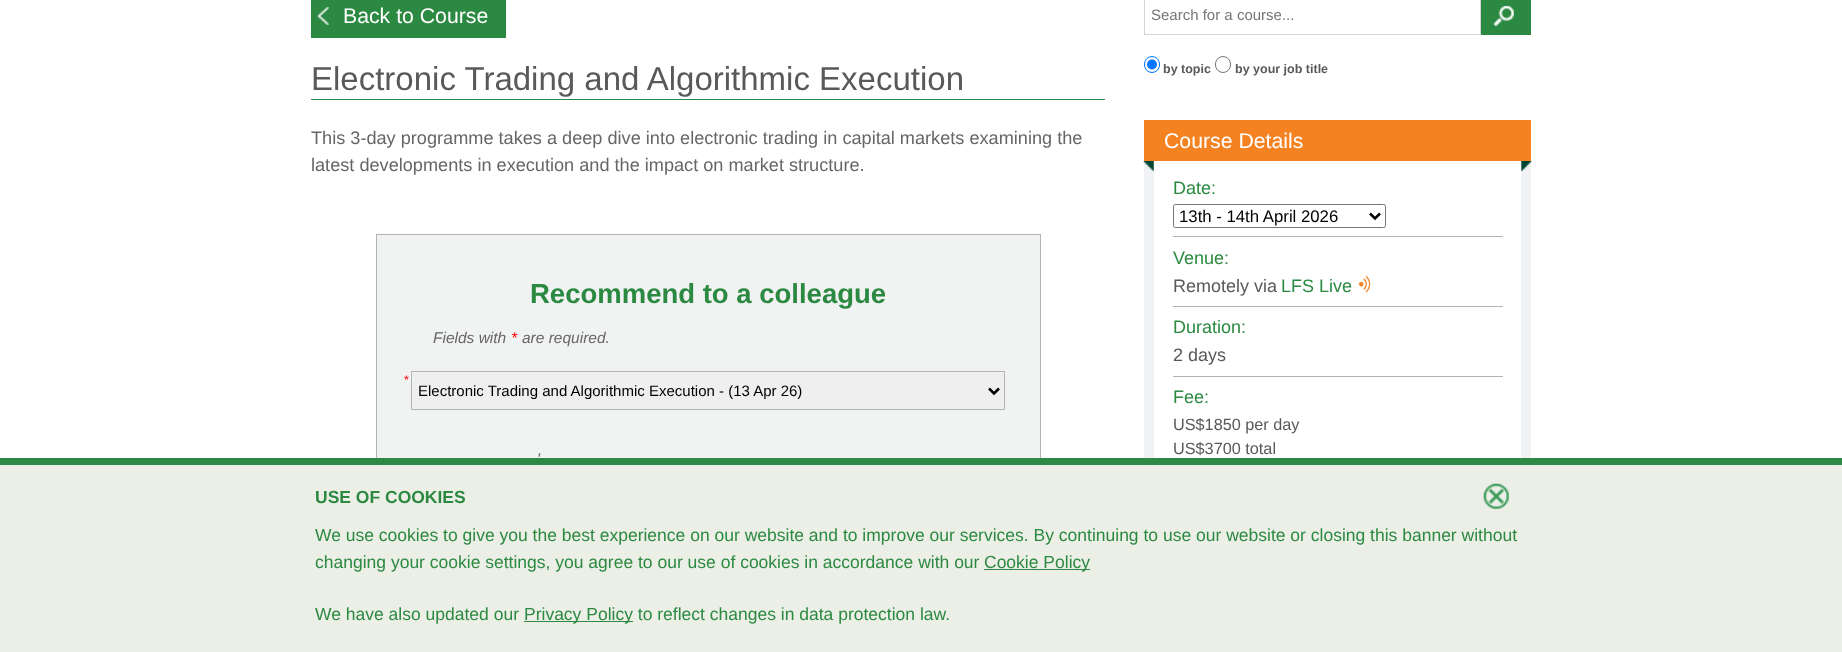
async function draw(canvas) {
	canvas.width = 1842;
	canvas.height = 652;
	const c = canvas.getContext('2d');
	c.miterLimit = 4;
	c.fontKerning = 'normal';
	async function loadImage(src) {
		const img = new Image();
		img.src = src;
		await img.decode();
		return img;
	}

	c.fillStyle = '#fff';
	c.fillRect(0, 0, 1842, 652);
	c.fillStyle = '#2c8942';
	c.fillRect(311, 0, 195, 38);
	c.drawImage(await loadImage('img1.png'), 317, 7, 12, 18);
	c.font = '21.25px Liberation Sans';
	c.fillStyle = '#fff';
	c.fillText('Back to Course', 343, 23);
	c.fillStyle = '#2c8942';
	c.fillRect(311, 99, 794, 1);
	c.font = '33px Liberation Sans';
	c.fillStyle = '#58595b';
	c.fillText('Electronic Trading and Algorithmic Execution', 311, 90);
	c.font = '18.15px Liberation Sans';
	c.fillStyle = '#666';
	c.fillText('This 3-day programme takes a deep dive into electronic trading in capital markets examining the', 311, 144);
	c.fillText('latest developments in execution and the impact on market structure.', 311, 171);
	c.fillStyle = '#f1f2f2';
	c.fillRect(377, 235, 663, 223);
	c.strokeStyle = '#b1b3b6';
	c.strokeRect(376.5, 234.5, 664, 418);
	c.font = 'bold 27.5px Liberation Sans';
	c.fillStyle = '#2c8942';
	c.fillText('Recommend to a colleague', 530, 303);
	c.font = 'italic 15.5px Liberation Sans';
	c.fillStyle = '#666';
	c.fillText('Fields with', 433, 343);
	c.fillStyle = '#f00';
	c.fillText('*', 511, 343);
	c.fillStyle = '#666';
	c.fillText('are required.', 522, 343);
	c.font = '12.5px Liberation Sans';
	c.fillStyle = '#f00';
	c.fillText('*', 404, 384);
	c.fillStyle = '#efefef';
	c.beginPath();
	c.rect(411.5, 371.5, 593, 38);
	c.fill();
	c.stroke();
	c.beginPath();
	c.moveTo(989, 388.5);
	c.lineTo(994, 393.5);
	c.lineTo(999, 388.5);
	c.strokeStyle = '#000';
	c.lineWidth = 2.5;
	c.stroke();
	c.font = '15px Liberation Sans';
	c.fillStyle = '#000';
	c.fillText('Electronic Trading and Algorithmic Execution - (13 Apr 26)', 418, 396);
	c.font = 'italic 15.5px Liberation Sans';
	c.fillStyle = '#666';
	c.fillText('\'', 537, 464);
	c.strokeStyle = '#d6d6d6';
	c.lineWidth = 1;
	c.strokeRect(1144.5, -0.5, 336, 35);
	c.font = '15px Liberation Sans';
	c.fillStyle = '#757575';
	c.fillText('Search for a course...', 1151, 20);
	c.fillStyle = '#2c8942';
	c.fillRect(1481, 0, 50, 35);
	c.drawImage(await loadImage('img2.png'), 1493, 5, 21, 22);
	c.beginPath();
	c.roundRect(1144.5, 56.5, 15, 16, 7.5);
	c.strokeStyle = '#0075ff';
	c.stroke();
	c.fillStyle = '#0075ff';
	c.beginPath();
	c.arc(1152, 64.5, 5, 0, 2 * Math.PI);
	c.fill();
	c.font = 'bold 12.5px Liberation Sans';
	c.fillStyle = '#58595b';
	c.fillText('by topic', 1163, 73);
	c.beginPath();
	c.roundRect(1215.5, 56.5, 15, 16, 7.5);
	c.strokeStyle = '#767676';
	c.stroke();
	c.fillText('by your job title', 1235, 73);
	c.fillStyle = '#f58220';
	c.fillRect(1144, 120, 387, 41);
	c.font = '21.25px Liberation Sans';
	c.fillStyle = '#fff';
	c.fillText('Course Details', 1164, 148);
	c.fillStyle = '#f1f2f3';
	c.fillRect(1144, 161, 387, 297);
	c.drawImage(await loadImage('img3.png'), 1143, 161, 389, 10);
	c.fillStyle = '#fff';
	c.fillRect(1154, 161, 367, 297);
	c.font = '18px Liberation Sans';
	c.fillStyle = '#2c8942';
	c.fillText('Date:', 1173, 194);
	c.beginPath();
	c.roundRect(1173.5, 204.5, 212, 23, 2);
	c.stroke();
	c.beginPath();
	c.moveTo(1370, 213.5);
	c.lineTo(1375, 218.5);
	c.lineTo(1380, 213.5);
	c.strokeStyle = '#000';
	c.lineWidth = 2.5;
	c.stroke();
	c.font = '16.75px Liberation Sans';
	c.fillStyle = '#000';
	c.fillText('13th - 14th April 2026', 1179, 222);
	c.fillStyle = '#b1b3b6';
	c.fillRect(1173, 236, 330, 1);
	c.font = '18px Liberation Sans';
	c.fillStyle = '#2c8942';
	c.fillText('Venue:', 1173, 264);
	c.fillStyle = '#58595b';
	c.fillText('Remotely via', 1173, 292);
	c.fillStyle = '#2c8942';
	c.fillText('LFS Live', 1281, 292);
	c.drawImage(await loadImage('img4.png'), 1358, 276, 13, 17);
	c.fillStyle = '#b1b3b6';
	c.fillRect(1173, 306, 330, 1);
	c.fillStyle = '#2c8942';
	c.fillText('Duration:', 1173, 333);
	c.fillStyle = '#58595b';
	c.fillText('2 days', 1173, 361);
	c.fillStyle = '#b1b3b6';
	c.fillRect(1173, 376, 330, 1);
	c.fillStyle = '#2c8942';
	c.fillText('Fee:', 1173, 403);
	c.font = '16.25px Liberation Sans';
	c.fillStyle = '#58595b';
	c.fillText('US$1850 per day', 1173, 430);
	c.fillText('US$3700 total', 1173, 454);
	c.fillStyle = '#ebefe6';
	c.fillRect(0, 465, 1842, 187);
	c.fillStyle = '#2d8943';
	c.fillRect(0, 458, 1842, 7);
	c.font = 'bold 17.5px Liberation Sans';
	c.fillStyle = '#2c8942';
	c.fillText('USE OF COOKIES', 315, 503);
	c.drawImage(await loadImage('img5.png'), 1483, 483, 26, 26);
	c.font = '17.5px Liberation Sans';
	c.fillText('We use cookies to give you the best experience on our website and to improve our services. By continuing to use our website or closing this banner without', 315, 541);
	c.fillText('changing your cookie settings, you agree to our use of cookies in accordance with our', 315, 568);
	c.fillStyle = '#2d8943';
	c.fillRect(984, 569, 106, 1);
	c.fillStyle = '#2c8942';
	c.fillText('Cookie Policy', 984, 568);
	c.fillText('We have also updated our', 315, 620);
	c.fillStyle = '#2d8943';
	c.fillRect(524, 621, 109, 1);
	c.fillStyle = '#2c8942';
	c.fillText('Privacy Policy to reflect changes in data protection law.', 524, 620);
}

draw(document.querySelector('canvas'));
